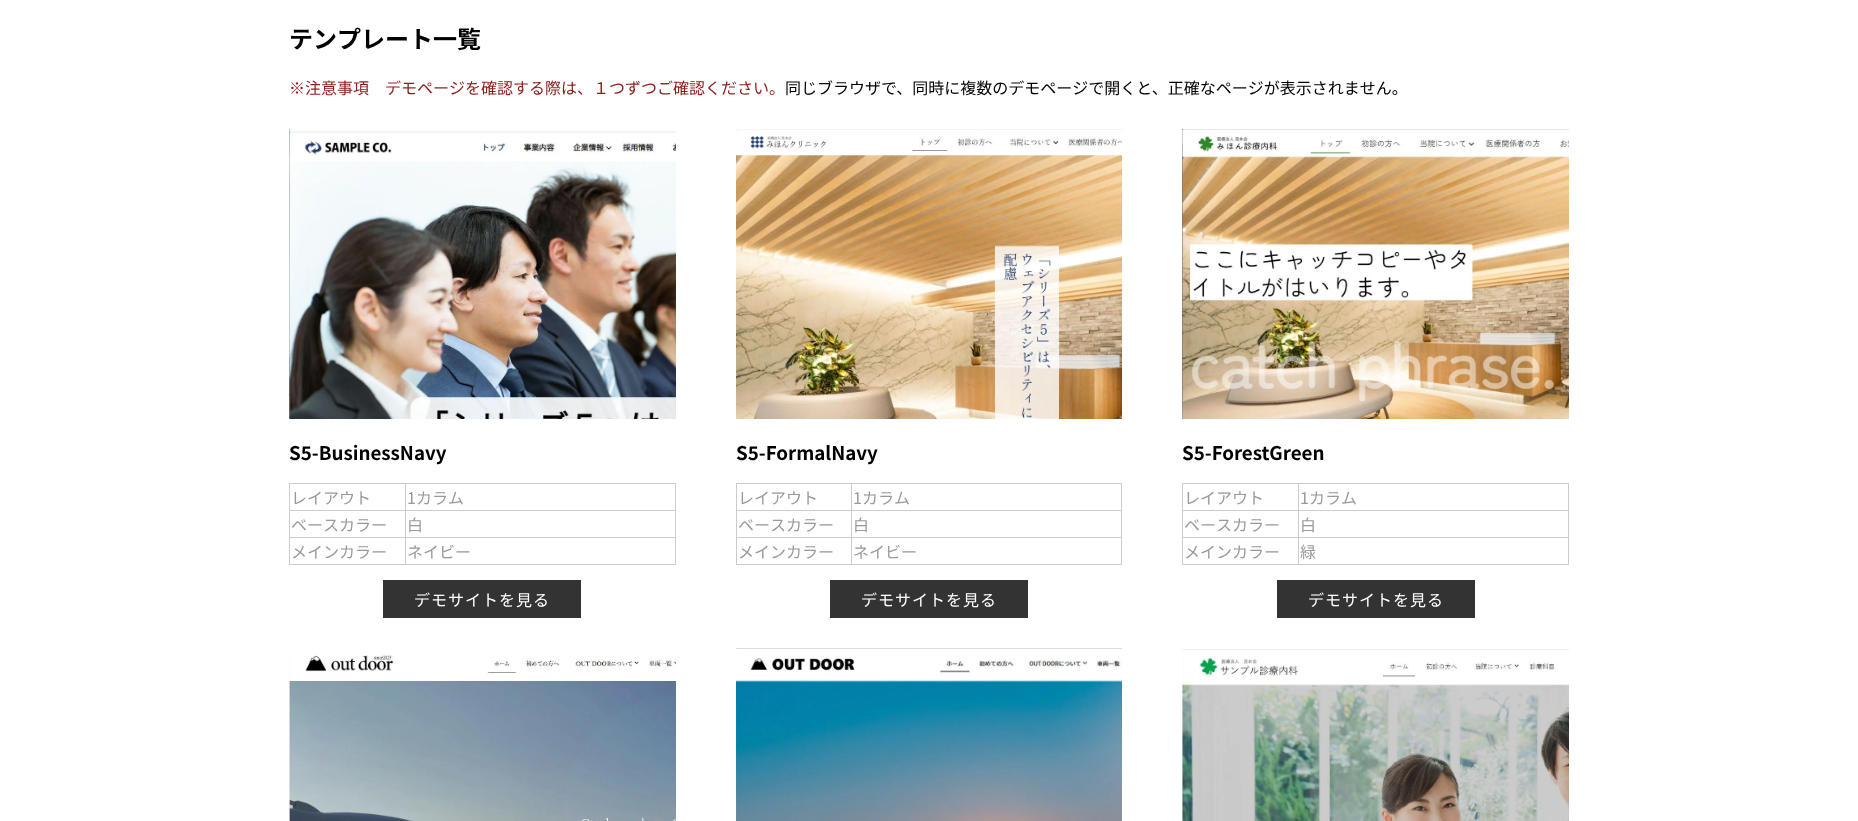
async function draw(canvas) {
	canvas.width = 1858;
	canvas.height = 821;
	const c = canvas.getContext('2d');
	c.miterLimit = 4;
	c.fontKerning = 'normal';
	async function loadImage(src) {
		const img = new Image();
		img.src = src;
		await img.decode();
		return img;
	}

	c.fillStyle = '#fff';
	c.fillRect(0, 0, 1858, 821);
	c.font = 'bold 24px Noto Sans JP';
	c.fillStyle = '#000';
	c.fillText('テンプレート一覧', 289, 48);
	c.font = '16px Noto Sans JP';
	c.fillStyle = '#8b1b18';
	c.fillText('※注意事項　デモページを確認する際は、１つずつご確認ください。', 289, 94);
	c.fillStyle = '#000';
	c.fillText('同じブラウザで、同時に複数のデモページで開くと、正確なページが表示されません。', 785, 94);
	c.drawImage(await loadImage('img1.png'), 289, 129, 387, 290);
	c.font = 'bold 18.75px Noto Sans JP';
	c.fillText('S5-BusinessNavy', 289, 460);
	for (const [x, y, w, h, color] of [
		[289, 483, 387, 1, '#ccc'],
		[675, 483, 1, 82, '#ccc'],
		[405, 564, 271, 1, '#ccc'],
		[405, 537, 1, 28, '#ccc'],
		[405, 537, 271, 1, '#ccc'],
		[405, 510, 1, 28, '#ccc'],
		[405, 510, 271, 1, '#ccc'],
		[405, 483, 1, 28, '#ccc'],
		[289, 564, 117, 1, '#ccc'],
		[289, 537, 1, 28, '#ccc'],
		[289, 537, 117, 1, '#ccc'],
		[289, 510, 1, 28, '#ccc'],
		[289, 510, 117, 1, '#ccc'],
		[289, 483, 1, 28, '#ccc'],
	]) {
		c.fillStyle = color;
		c.fillRect(x, y, w, h);
	}
	c.font = '16px Noto Sans JP';
	c.fillStyle = '#999';
	for (const [text, x, y] of [
		['レイアウト', 291, 504],
		['1カラム', 407, 504],
		['ベースカラー', 291, 531],
		['白', 407, 531],
		['メインカラー', 291, 558],
		['ネイビー', 407, 558],
	]) {
		c.fillText(text, x, y);
	}
	c.fillStyle = '#333';
	c.fillRect(383, 580, 198, 38);
	c.letterSpacing = '1px';
	c.fillStyle = '#fff';
	c.fillText('デモサイトを見る', 414, 606);
	c.drawImage(await loadImage('img2.png'), 736, 129, 386, 290);
	c.letterSpacing = '0px';
	c.font = 'bold 18.75px Noto Sans JP';
	c.fillStyle = '#000';
	c.fillText('S5-FormalNavy', 736, 460);
	for (const [x, y, w, h, color] of [
		[736, 483, 386, 1, '#ccc'],
		[1121, 483, 1, 82, '#ccc'],
		[851, 564, 271, 1, '#ccc'],
		[851, 537, 1, 28, '#ccc'],
		[851, 537, 271, 1, '#ccc'],
		[851, 510, 1, 28, '#ccc'],
		[851, 510, 271, 1, '#ccc'],
		[851, 483, 1, 28, '#ccc'],
		[736, 564, 116, 1, '#ccc'],
		[736, 537, 1, 28, '#ccc'],
		[736, 537, 116, 1, '#ccc'],
		[736, 510, 1, 28, '#ccc'],
		[736, 510, 116, 1, '#ccc'],
		[736, 483, 1, 28, '#ccc'],
	]) {
		c.fillStyle = color;
		c.fillRect(x, y, w, h);
	}
	c.font = '16px Noto Sans JP';
	c.fillStyle = '#999';
	for (const [text, x, y] of [
		['レイアウト', 738, 504],
		['1カラム', 853, 504],
		['ベースカラー', 738, 531],
		['白', 853, 531],
		['メインカラー', 738, 558],
		['ネイビー', 853, 558],
	]) {
		c.fillText(text, x, y);
	}
	c.fillStyle = '#333';
	c.fillRect(830, 580, 198, 38);
	c.letterSpacing = '1px';
	c.fillStyle = '#fff';
	c.fillText('デモサイトを見る', 861, 606);
	c.drawImage(await loadImage('img3.png'), 1182, 129, 387, 290);
	c.letterSpacing = '0px';
	c.font = 'bold 18.75px Noto Sans JP';
	c.fillStyle = '#000';
	c.fillText('S5-ForestGreen', 1182, 460);
	for (const [x, y, w, h, color] of [
		[1182, 483, 387, 1, '#ccc'],
		[1568, 483, 1, 82, '#ccc'],
		[1298, 564, 271, 1, '#ccc'],
		[1298, 537, 1, 28, '#ccc'],
		[1298, 537, 271, 1, '#ccc'],
		[1298, 510, 1, 28, '#ccc'],
		[1298, 510, 271, 1, '#ccc'],
		[1298, 483, 1, 28, '#ccc'],
		[1182, 564, 117, 1, '#ccc'],
		[1182, 537, 1, 28, '#ccc'],
		[1182, 537, 117, 1, '#ccc'],
		[1182, 510, 1, 28, '#ccc'],
		[1182, 510, 117, 1, '#ccc'],
		[1182, 483, 1, 28, '#ccc'],
	]) {
		c.fillStyle = color;
		c.fillRect(x, y, w, h);
	}
	c.font = '16px Noto Sans JP';
	c.fillStyle = '#999';
	for (const [text, x, y] of [
		['レイアウト', 1184, 504],
		['1カラム', 1300, 504],
		['ベースカラー', 1184, 531],
		['白', 1300, 531],
		['メインカラー', 1184, 558],
		['緑', 1300, 558],
	]) {
		c.fillText(text, x, y);
	}
	c.fillStyle = '#333';
	c.fillRect(1277, 580, 198, 38);
	c.letterSpacing = '1px';
	c.fillStyle = '#fff';
	c.fillText('デモサイトを見る', 1308, 606);
	c.drawImage(await loadImage('img4.png'), 289, 655, 387, 166);
	c.drawImage(await loadImage('img5.png'), 736, 648, 386, 173);
	c.drawImage(await loadImage('img6.png'), 1182, 649, 387, 172);
}

draw(document.querySelector('canvas'));
